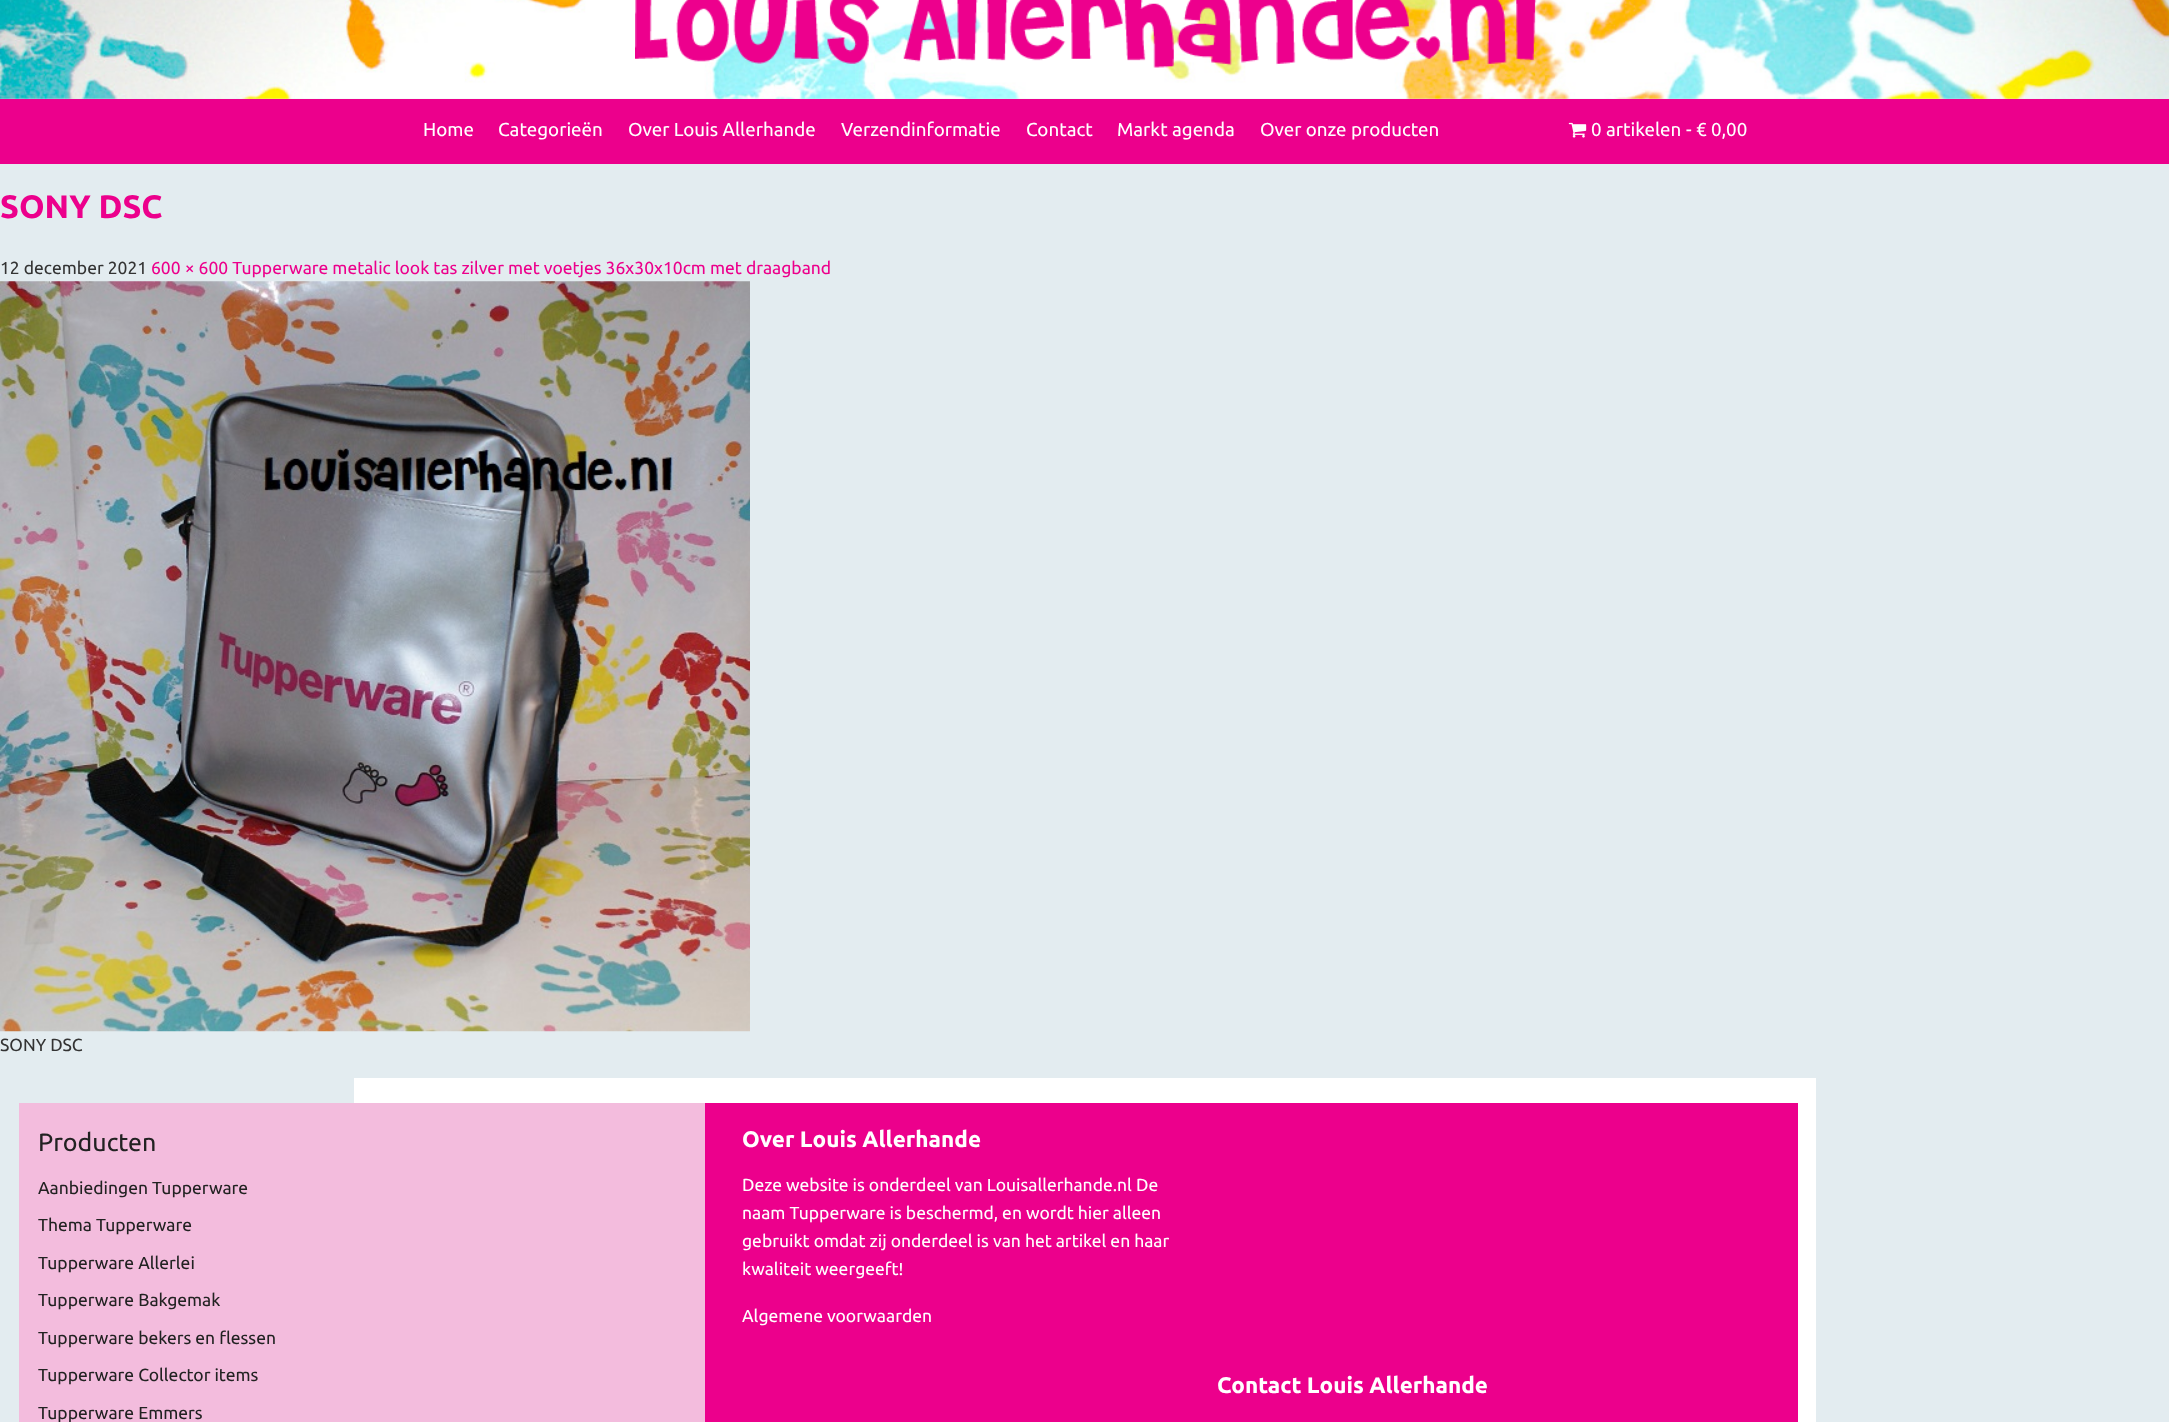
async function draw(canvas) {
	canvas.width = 2169;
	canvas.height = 1422;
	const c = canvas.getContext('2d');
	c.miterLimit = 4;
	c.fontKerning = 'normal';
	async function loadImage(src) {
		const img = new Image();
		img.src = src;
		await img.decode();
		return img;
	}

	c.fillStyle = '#e3ecf0';
	c.fillRect(0, 0, 2169, 1422);
	c.drawImage(await loadImage('img1.png'), 0, 0, 2169, 99);
	c.drawImage(await loadImage('img2.png'), 635, 0, 902, 68);
	c.fillStyle = '#ec008c';
	c.fillRect(0, 99, 2169, 65);
	c.font = '18.75px Ubuntu';
	c.fillStyle = '#fff';
	for (const [text, x, y] of [
		['Home', 423, 136],
		['Categorieën', 498, 136],
		['Over Louis Allerhande', 628, 136],
		['Verzendinformatie', 841, 136],
		['Contact', 1026, 136],
		['Markt agenda', 1117, 136],
		['Over onze producten', 1260, 136],
	]) {
		c.fillText(text, x, y);
	}
	c.drawImage(await loadImage('img3.png'), 1568, 122, 19, 16);
	for (const [text, x, y] of [
		['0 artikelen', 1591, 136],
		['-', 1686, 136],
		['€ 0,00', 1696, 136],
	]) {
		c.fillText(text, x, y);
	}
	c.font = 'bold 32.5px Ubuntu';
	c.fillStyle = '#ec008c';
	c.fillText('SONY DSC', 0, 218);
	c.font = '17.5px Ubuntu';
	c.fillStyle = '#333';
	c.fillText('12 december 2021', 0, 274);
	c.fillStyle = '#ec008c';
	c.fillText('600 × 600 Tupperware metalic look tas zilver met voetjes 36x30x10cm met draagband', 151, 274);
	c.drawImage(await loadImage('img4.png'), 0, 281, 750, 751);
	c.fillStyle = '#333';
	c.fillText('SONY DSC', 0, 1051);
	c.fillStyle = '#fff';
	c.fillRect(354, 1078, 1462, 344);
	c.fillStyle = '#f3bcdd';
	c.fillRect(19, 1103, 686, 319);
	c.font = '25px Ubuntu';
	c.fillStyle = '#222';
	c.fillText('Producten', 38, 1151);
	c.font = '17.5px Ubuntu';
	for (const [text, x, y] of [
		['Aanbiedingen Tupperware', 38, 1194],
		['Thema Tupperware', 38, 1231],
		['Tupperware Allerlei', 38, 1269],
		['Tupperware Bakgemak', 38, 1306],
		['Tupperware bekers en flessen', 38, 1344],
		['Tupperware Collector items', 38, 1381],
		['Tupperware Emmers', 38, 1419],
	]) {
		c.fillText(text, x, y);
	}
	c.fillStyle = '#ec008c';
	c.fillRect(705, 1103, 1093, 319);
	c.font = 'bold 22.5px Ubuntu';
	c.fillStyle = '#fff';
	c.fillText('Over Louis Allerhande', 742, 1147);
	c.font = '17.5px Ubuntu';
	for (const [text, x, y] of [
		['Deze website is onderdeel van Louisallerhande.nl De', 742, 1191],
		['naam Tupperware is beschermd, en wordt hier alleen', 742, 1219],
		['gebruikt omdat zij onderdeel is van het artikel en haar', 742, 1247],
		['kwaliteit weergeeft!', 742, 1275],
		['Algemene voorwaarden', 742, 1322],
	]) {
		c.fillText(text, x, y);
	}
	c.font = 'bold 22.5px Ubuntu';
	c.fillText('Contact Louis Allerhande', 1217, 1393);
}

draw(document.querySelector('canvas'));
